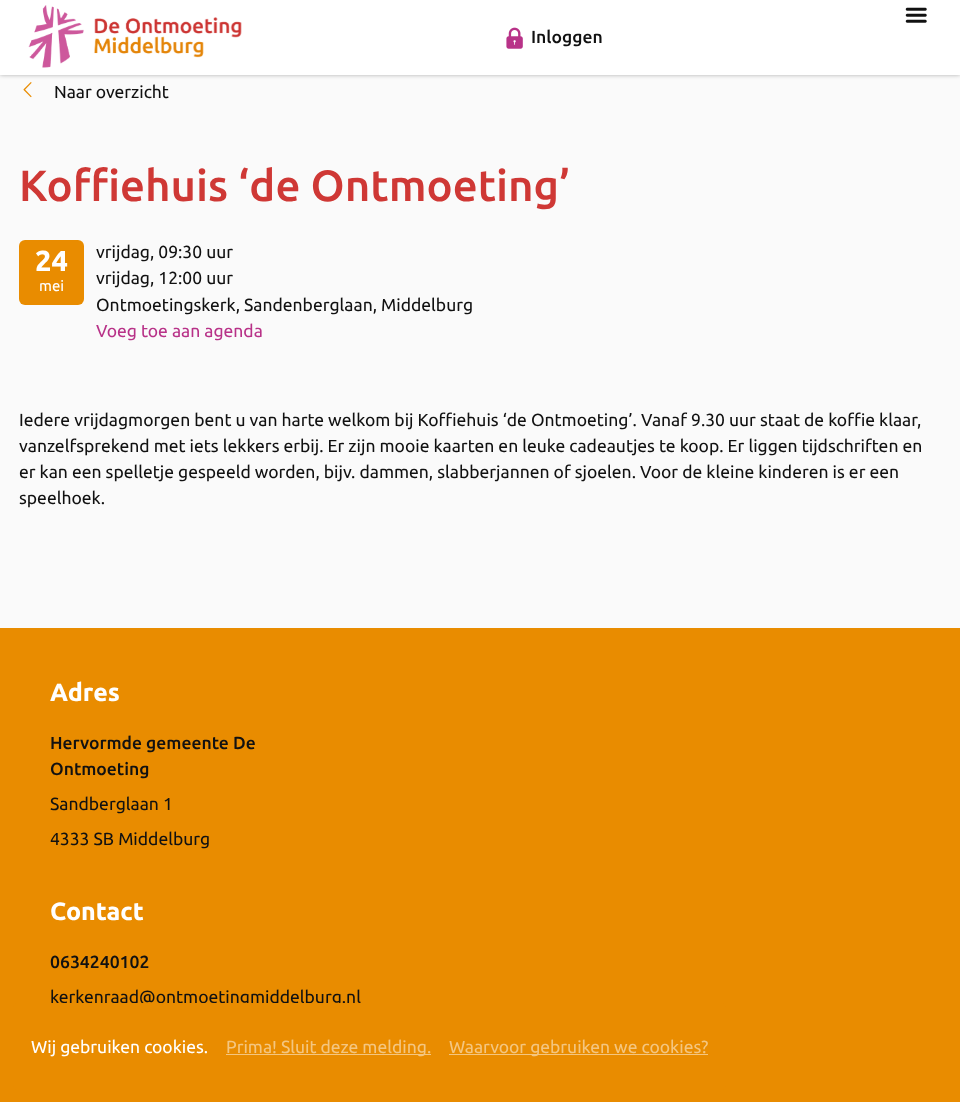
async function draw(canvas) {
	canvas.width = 960;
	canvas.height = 1102;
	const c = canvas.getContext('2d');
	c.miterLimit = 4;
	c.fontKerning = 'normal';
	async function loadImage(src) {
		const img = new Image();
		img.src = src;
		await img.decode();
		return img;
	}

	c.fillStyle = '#fafafa';
	c.fillRect(0, 0, 960, 1102);
	c.fillStyle = '#0000004d';
	c.filter = 'blur(2px)';
	c.beginPath();
	c.rect(0, 0, 960, 75);
	c.fill();
	c.filter = 'none';
	c.fillStyle = '#fff';
	c.fillRect(0, 0, 960, 75);
	c.drawImage(await loadImage('img1.png'), 28, 5, 214, 63);
	c.drawImage(await loadImage('img2.png'), 905, 7, 22, 16);
	c.drawImage(await loadImage('img3.png'), 506, 27, 17, 22);
	c.font = '500 17.5px Ubuntu';
	c.fillStyle = '#111';
	c.fillText('Inloggen', 531, 43);
	c.drawImage(await loadImage('img4.png'), 23, 82, 9, 16);
	c.font = '17.5px Ubuntu';
	c.fillText('Naar overzicht', 54, 98);
	c.font = '500 43.75px Ubuntu';
	c.fillStyle = '#cf3835';
	c.fillText('Koffiehuis ‘de Ontmoeting’', 19, 201);
	c.fillStyle = '#e98c00';
	c.beginPath();
	c.roundRect(19, 240, 65, 65, 6);
	c.fill();
	c.font = 'bold 29px Ubuntu';
	c.fillStyle = '#fff';
	c.fillText('24', 35, 271);
	c.font = '15px Ubuntu';
	c.fillText('mei', 39, 291);
	c.font = '17.5px Ubuntu';
	c.fillStyle = '#111';
	for (const [text, x, y] of [
		['vrijdag, 09:30 uur', 96, 258],
		['vrijdag, 12:00 uur', 96, 284],
		['Ontmoetingskerk, Sandenberglaan, Middelburg', 96, 311],
	]) {
		c.fillText(text, x, y);
	}
	c.fillStyle = '#b83288';
	c.fillText('Voeg toe aan agenda', 96, 337);
	c.fillStyle = '#111';
	for (const [text, x, y] of [
		['Iedere vrijdagmorgen bent u van harte welkom bij Koffiehuis ‘de Ontmoeting’. Vanaf 9.30 uur staat de koffie klaar,', 19, 426],
		['vanzelfsprekend met iets lekkers erbij. Er zijn mooie kaarten en leuke cadeautjes te koop. Er liggen tijdschriften en', 19, 452],
		['er kan een spelletje gespeeld worden, bijv. dammen, slabberjannen of sjoelen. Voor de kleine kinderen is er een', 19, 478],
		['speelhoek.', 19, 504],
	]) {
		c.fillText(text, x, y);
	}
	c.fillStyle = '#e98c00';
	c.fillRect(0, 628, 960, 474);
	c.font = 'bold 25px Ubuntu';
	c.fillStyle = '#fff';
	c.fillText('Adres', 50, 701);
	c.font = '500 17.5px Ubuntu';
	c.fillStyle = '#111';
	c.fillText('Hervormde gemeente De', 50, 749);
	c.fillText('Ontmoeting', 50, 775);
	c.font = '17.5px Ubuntu';
	c.fillText('Sandberglaan 1', 50, 810);
	c.fillText('4333 SB Middelburg', 50, 845);
	c.font = 'bold 25px Ubuntu';
	c.fillStyle = '#fff';
	c.fillText('Contact', 50, 920);
	c.font = '500 17.5px Ubuntu';
	c.fillStyle = '#111';
	c.fillText('0634240102', 50, 968);
	c.font = '17.5px Ubuntu';
	c.fillText('kerkenraad@ontmoetingmiddelburg.nl', 50, 1003);
	c.fillStyle = '#e98c00';
	c.beginPath();
	c.roundRect(13, 1003, 713, 87, 4);
	c.fill();
	c.fillStyle = '#fff';
	c.fillText('Wij gebruiken cookies.', 31, 1053);
	c.fillStyle = '#f4c680';
	c.fillRect(226, 1054, 205, 1);
	c.fillText('Prima! Sluit deze melding.', 226, 1053);
	c.fillRect(449, 1054, 259, 1);
	c.fillText('Waarvoor gebruiken we cookies?', 449, 1053);
}

draw(document.querySelector('canvas'));
